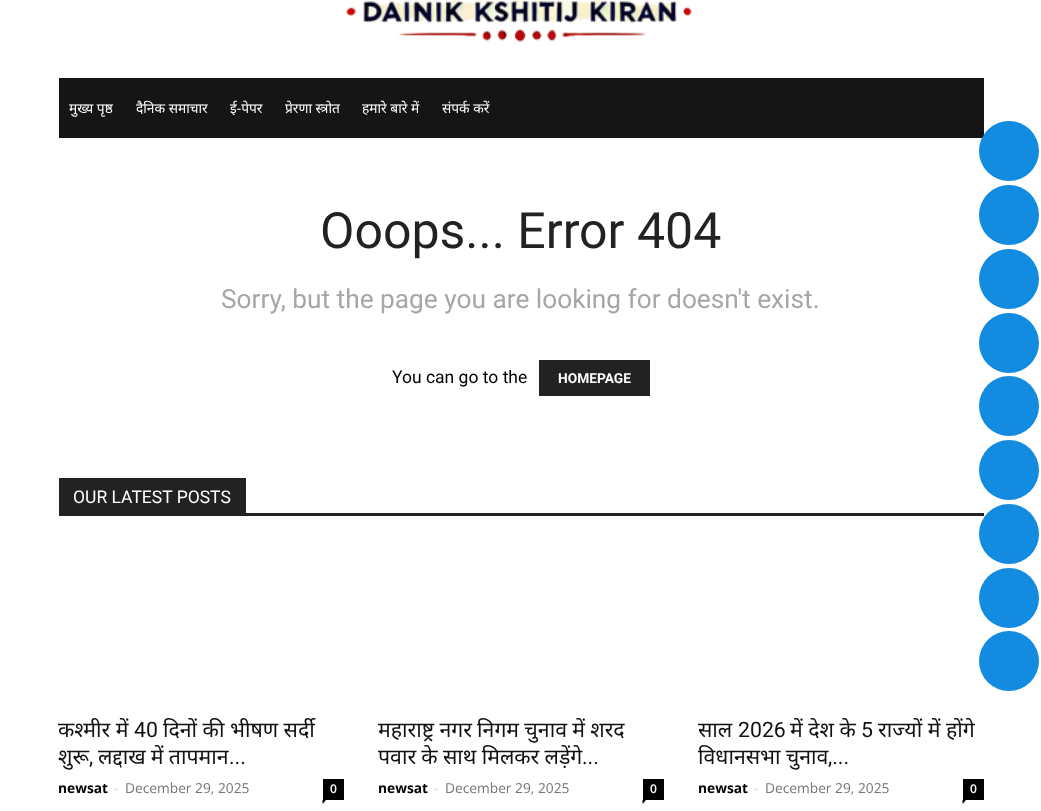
async function draw(canvas) {
	canvas.width = 1041;
	canvas.height = 811;
	const c = canvas.getContext('2d');
	c.miterLimit = 4;
	c.fontKerning = 'normal';
	async function loadImage(src) {
		const img = new Image();
		img.src = src;
		await img.decode();
		return img;
	}

	c.fillStyle = '#fff';
	c.fillRect(0, 0, 1041, 811);
	c.drawImage(await loadImage('img1.png'), 346, 0, 346, 42);
	c.fillStyle = '#151515';
	c.fillRect(59, 78, 925, 60);
	c.font = '13.75px Noto Sans';
	c.fillStyle = '#fff';
	for (const [text, x, y] of [
		['मुख्य पृष्ठ', 69, 113],
		['दैनिक समाचार', 136, 113],
		['ई-पेपर', 230, 113],
		['प्रेरणा स्त्रोत', 285, 113],
		['हमारे बारे में', 362, 113],
		['संपर्क करें', 442, 113],
	]) {
		c.fillText(text, x, y);
	}
	c.font = '50px Roboto';
	c.fillStyle = '#222';
	c.fillText('Ooops... Error 404', 320, 248);
	c.font = '26.25px Roboto';
	c.fillStyle = '#a6a6a6';
	c.fillText('Sorry, but the page you are looking for doesn\'t exist.', 221, 308);
	c.font = '17.5px Roboto';
	c.fillStyle = '#000';
	c.fillText('You can go to the', 392, 383);
	c.fillStyle = '#222';
	c.fillRect(539, 360, 111, 36);
	c.font = 'bold 13.75px Roboto';
	c.fillStyle = '#fff';
	c.fillText('HOMEPAGE', 558, 383);
	c.fillStyle = '#222';
	c.fillRect(59, 513, 925, 3);
	c.fillRect(59, 478, 187, 35);
	c.font = '17.5px Roboto';
	c.fillStyle = '#fff';
	c.fillText('OUR LATEST POSTS', 73, 503);
	c.font = '21.25px Noto Sans';
	c.fillStyle = '#111';
	c.fillText('कश्मीर में', 58, 737);
	c.font = '21.25px Roboto';
	c.fillText('40', 134, 737);
	c.font = '21.25px Noto Sans';
	c.fillText('दिनों की भीषण सर्दी', 163, 737);
	c.fillText('शुरू', 58, 764);
	c.font = '21.25px Roboto';
	c.fillText(',', 89, 764);
	c.wordSpacing = '-0.25px';
	c.font = '21.25px Noto Sans';
	c.fillText('लद्दाख में तापमान', 98, 764);
	c.wordSpacing = '0px';
	c.font = '21.25px Roboto';
	c.fillText('...', 229, 764);
	c.font = 'bold 13.75px Open Sans';
	c.fillStyle = '#000';
	c.fillText('newsat', 58, 793);
	c.font = '13.75px Open Sans';
	c.fillStyle = '#ccc';
	c.fillText('-', 114, 793);
	c.fillStyle = '#767676';
	c.fillText('December 29, 2025', 125, 793);
	c.fillStyle = '#000';
	c.fillRect(323, 779, 21, 21);
	c.font = '600 12px Open Sans';
	c.fillStyle = '#fff';
	c.fillText('0', 330, 793);
	c.fillStyle = '#000';
	c.beginPath();
	c.moveTo(322.5, 800);
	c.lineTo(326, 800);
	c.lineTo(322.5, 804);
	c.closePath();
	c.fill();
	c.wordSpacing = '-0.25px';
	c.font = '21.25px Noto Sans';
	c.fillStyle = '#111';
	c.fillText('महाराष्ट्र नगर निगम चुनाव में शरद', 378, 737);
	c.fillText('पवार के साथ मिलकर लड़ेंगे', 378, 764);
	c.wordSpacing = '0px';
	c.font = '21.25px Roboto';
	c.fillText('...', 582, 764);
	c.font = 'bold 13.75px Open Sans';
	c.fillStyle = '#000';
	c.fillText('newsat', 378, 793);
	c.font = '13.75px Open Sans';
	c.fillStyle = '#ccc';
	c.fillText('-', 434, 793);
	c.fillStyle = '#767676';
	c.fillText('December 29, 2025', 445, 793);
	c.fillStyle = '#000';
	c.fillRect(643, 779, 21, 21);
	c.font = '600 12px Open Sans';
	c.fillStyle = '#fff';
	c.fillText('0', 650, 793);
	c.fillStyle = '#000';
	c.beginPath();
	c.moveTo(642.5, 800);
	c.lineTo(646, 800);
	c.lineTo(642.5, 804);
	c.closePath();
	c.fill();
	c.font = '21.25px Noto Sans';
	c.fillStyle = '#111';
	c.fillText('साल', 698, 737);
	c.font = '21.25px Roboto';
	c.fillText('2026', 738, 737);
	c.font = '21.25px Noto Sans';
	c.fillText('में देश के', 790, 737);
	c.font = '21.25px Roboto';
	c.fillText('5', 861, 737);
	c.font = '21.25px Noto Sans';
	c.fillText('राज्यों में होंगे', 878, 737);
	c.wordSpacing = '-0.25px';
	c.fillText('विधानसभा चुनाव', 698, 764);
	c.wordSpacing = '0px';
	c.font = '21.25px Roboto';
	c.fillText(',...', 828, 764);
	c.font = 'bold 13.75px Open Sans';
	c.fillStyle = '#000';
	c.fillText('newsat', 698, 793);
	c.font = '13.75px Open Sans';
	c.fillStyle = '#ccc';
	c.fillText('-', 754, 793);
	c.fillStyle = '#767676';
	c.fillText('December 29, 2025', 765, 793);
	c.fillStyle = '#000';
	c.fillRect(963, 779, 21, 21);
	c.font = '600 12px Open Sans';
	c.fillStyle = '#fff';
	c.fillText('0', 970, 793);
	c.fillStyle = '#000';
	c.beginPath();
	c.moveTo(962.5, 800);
	c.lineTo(966, 800);
	c.lineTo(962.5, 804);
	c.closePath();
	c.fill();
	c.fillStyle = '#128be0';
	c.beginPath();
	c.arc(1009, 151, 30, 0, 2 * Math.PI);
	c.fill();
	c.beginPath();
	c.arc(1009, 215, 30, 0, 2 * Math.PI);
	c.fill();
	c.beginPath();
	c.arc(1009, 279, 30, 0, 2 * Math.PI);
	c.fill();
	c.beginPath();
	c.arc(1009, 343, 30, 0, 2 * Math.PI);
	c.fill();
	c.beginPath();
	c.arc(1009, 406, 30, 0, 2 * Math.PI);
	c.fill();
	c.beginPath();
	c.arc(1009, 470, 30, 0, 2 * Math.PI);
	c.fill();
	c.beginPath();
	c.arc(1009, 534, 30, 0, 2 * Math.PI);
	c.fill();
	c.beginPath();
	c.arc(1009, 598, 30, 0, 2 * Math.PI);
	c.fill();
	c.beginPath();
	c.arc(1009, 661, 30, 0, 2 * Math.PI);
	c.fill();
}

draw(document.querySelector('canvas'));
